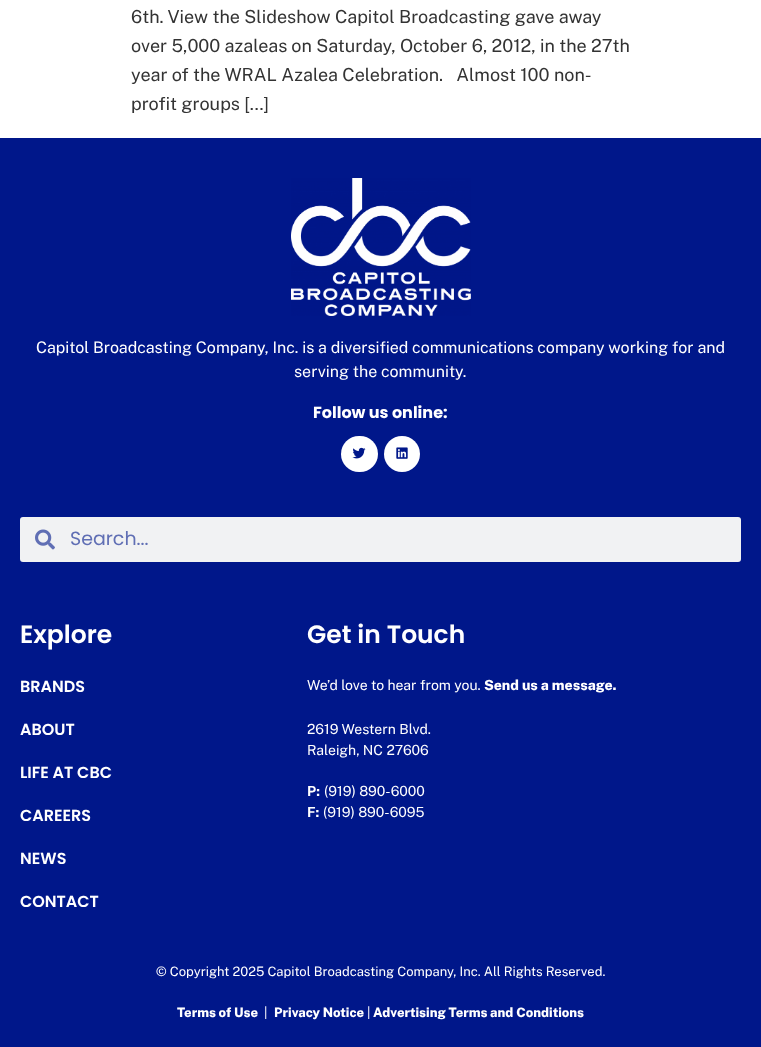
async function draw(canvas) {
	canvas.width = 761;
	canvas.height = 1047;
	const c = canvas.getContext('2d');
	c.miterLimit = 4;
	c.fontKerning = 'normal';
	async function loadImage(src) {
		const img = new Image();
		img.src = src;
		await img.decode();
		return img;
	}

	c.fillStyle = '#fff';
	c.fillRect(0, 0, 761, 1047);
	c.font = '18px Public Sans';
	c.fillStyle = '#333';
	for (const [text, x, y] of [
		['6th. View the Slideshow Capitol Broadcasting gave away', 131, 23],
		['over 5,000 azaleas on Saturday, October 6, 2012, in the 27th', 131, 52],
		['year of the WRAL Azalea Celebration.   Almost 100 non-', 131, 81],
		['profit groups […]', 131, 110],
	]) {
		c.fillText(text, x, y);
	}
	c.fillStyle = '#00178a';
	c.fillRect(0, 138, 761, 909);
	c.drawImage(await loadImage('img1.png'), 291, 178, 180, 138);
	c.font = '16px Public Sans';
	c.fillStyle = '#fff';
	c.fillText('Capitol Broadcasting Company, Inc. is a diversified communications company working for and', 36, 353);
	c.fillText('serving the community.', 294, 377);
	c.font = 'bold 16px Poppins';
	c.fillText('Follow us online:', 313, 418);
	c.beginPath();
	c.roundRect(341, 436, 37, 36, 18);
	c.fill();
	c.drawImage(await loadImage('img2.png'), 352, 447, 14, 12);
	c.beginPath();
	c.arc(402, 454, 18, 0, 2 * Math.PI);
	c.fill();
	c.drawImage(await loadImage('img3.png'), 396, 447, 12, 12);
	c.fillStyle = '#f1f2f3';
	c.beginPath();
	c.roundRect(20, 517, 721, 45, 3);
	c.fill();
	c.drawImage(await loadImage('img4.png'), 35, 529, 20, 21);
	c.font = '19px Poppins';
	c.fillStyle = '#606fb4';
	c.fillText('Search...', 70, 545);
	c.font = '600 25px Poppins';
	c.fillStyle = '#fff';
	c.fillText('Explore', 20, 643);
	c.font = '600 16px Poppins';
	for (const [text, x, y] of [
		['BRANDS', 20, 692],
		['ABOUT', 20, 735],
		['LIFE AT CBC', 20, 778],
		['CAREERS', 20, 821],
		['NEWS', 20, 864],
		['CONTACT', 20, 907],
	]) {
		c.fillText(text, x, y);
	}
	c.font = '600 25px Poppins';
	c.fillText('Get in Touch', 307, 643);
	c.font = '14px Public Sans';
	c.fillText('We’d love to hear from you.', 307, 690);
	c.font = '800 14px Public Sans';
	c.fillText('Send us a message.', 484, 690);
	c.font = '14px Public Sans';
	c.fillText('2619 Western Blvd.', 307, 734);
	c.fillText('Raleigh, NC 27606', 307, 755);
	c.font = 'bold 14px Public Sans';
	c.fillText('P:', 307, 796);
	c.font = '14px Public Sans';
	c.fillText('(919) 890-6000', 324, 796);
	c.font = 'bold 14px Public Sans';
	c.fillText('F:', 307, 817);
	c.font = '14px Public Sans';
	c.fillText('(919) 890-6095', 323, 817);
	c.font = '13px Public Sans';
	c.fillText('© Copyright 2025 Capitol Broadcasting Company, Inc. All Rights Reserved.', 156, 976);
	c.font = '800 13px Public Sans';
	c.fillText('Terms of Use', 177, 1017);
	c.font = '13px Public Sans';
	c.fillText('|', 264, 1017);
	c.font = '800 13px Public Sans';
	c.fillText('Privacy Notice', 274, 1017);
	c.font = '13px Public Sans';
	c.fillText('|', 367, 1017);
	c.font = '800 13px Public Sans';
	c.fillText('Advertising Terms and Conditions', 373, 1017);
}

draw(document.querySelector('canvas'));
